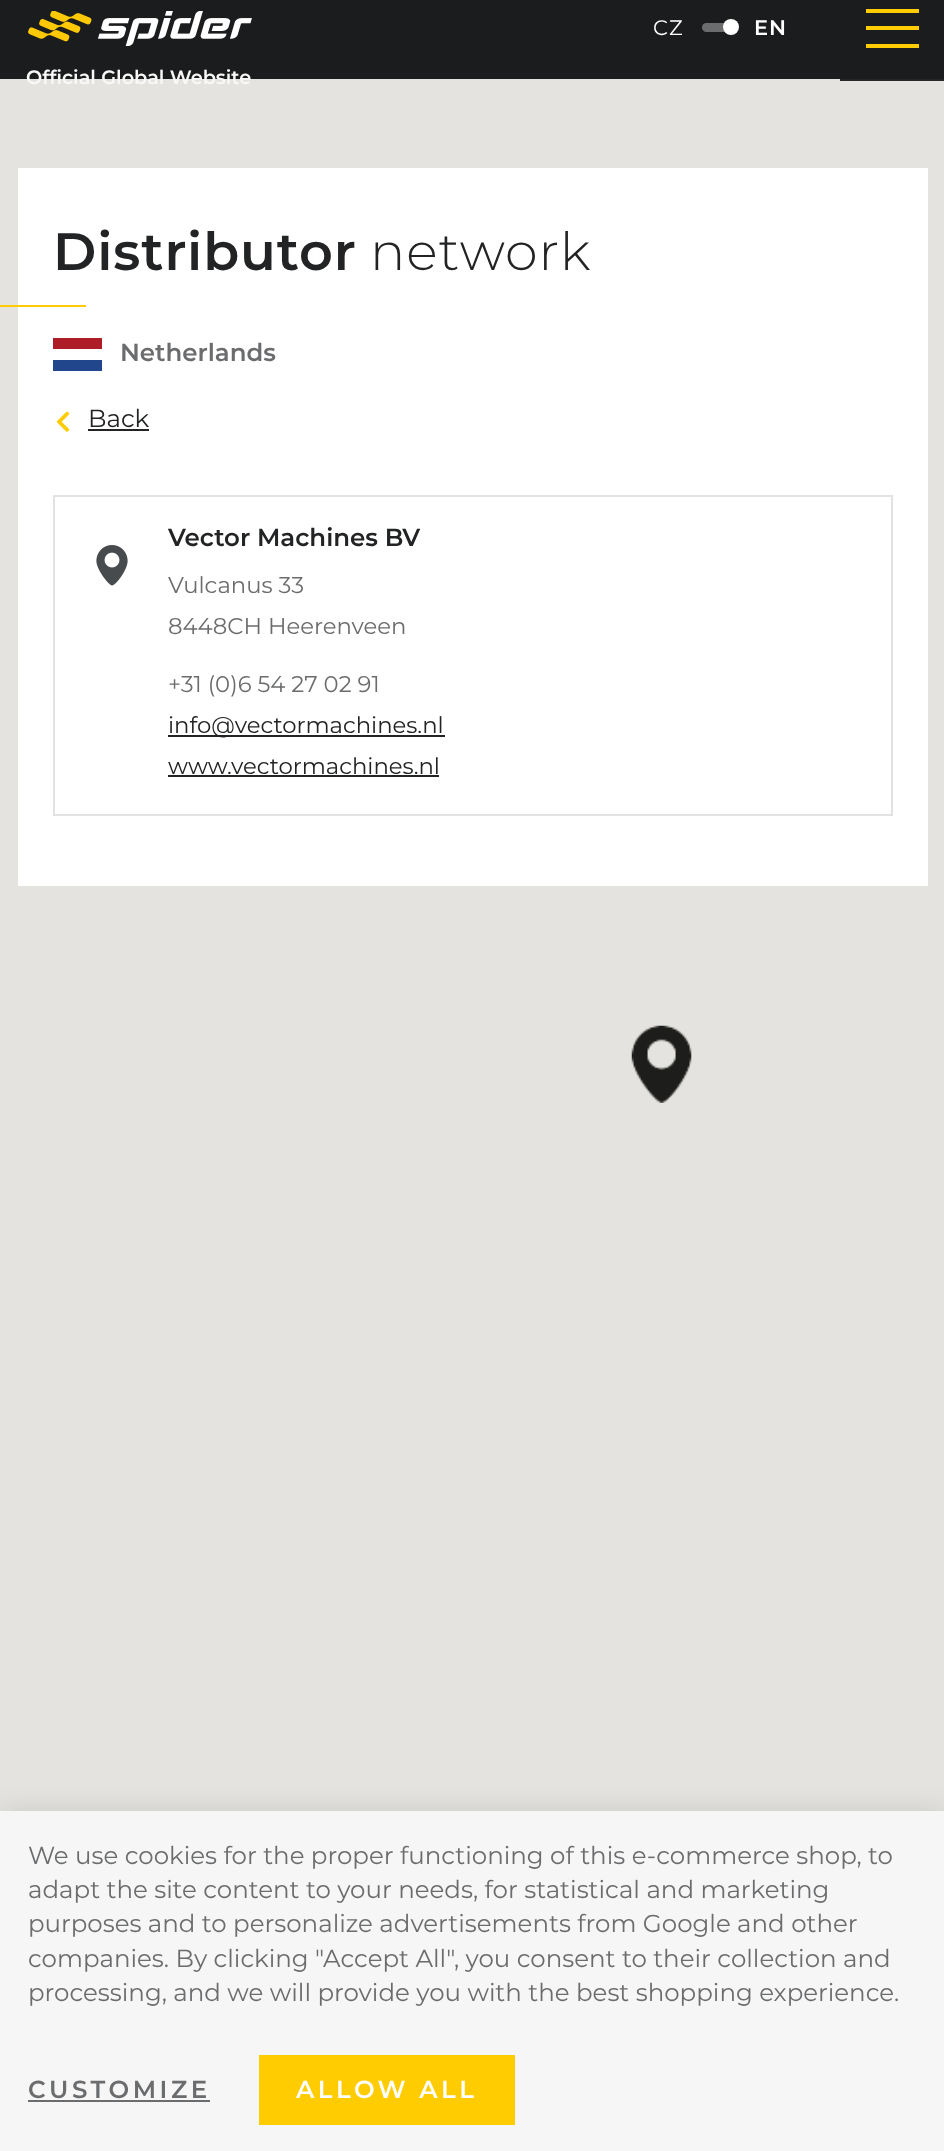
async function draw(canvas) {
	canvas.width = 944;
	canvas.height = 2151;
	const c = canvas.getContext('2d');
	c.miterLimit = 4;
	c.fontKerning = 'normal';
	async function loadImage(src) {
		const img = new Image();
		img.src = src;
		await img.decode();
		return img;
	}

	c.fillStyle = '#e5e3df';
	c.fillRect(0, 0, 944, 2151);
	c.fillStyle = '#1b1c1d';
	c.fillRect(0, 0, 944, 79);
	c.letterSpacing = '1px';
	c.font = '21px Montserrat';
	c.fillStyle = '#fff';
	c.fillText('CZ', 653, 35);
	c.fillStyle = '#6b6c6e';
	c.beginPath();
	c.roundRect(702, 23, 35, 9, 4.5);
	c.fill();
	c.fillStyle = '#fff';
	c.beginPath();
	c.arc(731, 27, 8, 0, 2 * Math.PI);
	c.fill();
	c.font = '600 21px Montserrat';
	c.fillText('EN', 754, 35);
	for (const [x, y, w, h, color] of [
		[866, 26, 53, 4, '#fecc00'],
		[866, 9, 53, 4, '#fecc00'],
		[866, 44, 53, 4, '#fecc00'],
	]) {
		c.fillStyle = color;
		c.fillRect(x, y, w, h);
	}
	c.drawImage(await loadImage('img1.png'), 28, 11, 224, 35);
	c.letterSpacing = '0px';
	c.font = '600 19.25px Montserrat';
	c.fillStyle = '#f8f8f8';
	c.fillText('Official Global Website', 26, 84);
	c.fillStyle = '#fff';
	c.fillRect(18, 168, 910, 718);
	c.letterSpacing = '0.9px';
	c.font = '600 52.5px Montserrat';
	c.fillStyle = '#222324';
	c.fillText('Distributor', 53, 270);
	c.font = '300 52.5px Montserrat';
	c.fillText('network', 370, 270);
	c.fillStyle = '#fecc00';
	c.fillRect(0, 305, 86, 2);
	c.fillStyle = '#ae1c28';
	c.fillRect(53, 338, 49, 11);
	c.letterSpacing = '0px';
	c.font = '600 24.5px Montserrat';
	c.fillStyle = '#6b6c6e';
	c.fillText('Netherlands', 120, 361);
	c.fillStyle = '#21468b';
	c.fillRect(53, 360, 49, 11);
	c.drawImage(await loadImage('img2.png'), 56, 411, 14, 21);
	c.font = '24.5px Montserrat';
	c.fillStyle = '#222324';
	c.fillText('Back', 88, 427);
	c.fillRect(88, 429, 61, 2);
	c.strokeStyle = '#e2e2e2';
	c.lineWidth = 2;
	c.strokeRect(54, 496, 838, 319);
	c.drawImage(await loadImage('img3.png'), 96, 545, 32, 41);
	c.font = '600 24.5px Montserrat';
	c.fillText('Vector Machines BV', 168, 546);
	c.font = '22.75px Montserrat';
	c.fillStyle = '#6b6c6e';
	for (const [text, x, y] of [
		['Vulcanus 33', 168, 593],
		['8448CH Heerenveen', 168, 634],
		['+31 (0)6 54 27 02 91', 168, 692],
	]) {
		c.fillText(text, x, y);
	}
	c.fillStyle = '#222324';
	c.fillRect(168, 735, 277, 2);
	c.fillText('info@vectormachines.nl', 168, 733);
	c.fillText('www.vectormachines.nl', 168, 774);
	c.fillRect(168, 775, 271, 2);
	c.fillStyle = '#252627';
	c.fillRect(840, 79, 104, 2);
	c.drawImage(await loadImage('img4.png'), 631, 1025, 61, 78);
	c.fillStyle = '#37373726';
	c.filter = 'blur(13px)';
	c.beginPath();
	c.rect(0, 1811, 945, 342);
	c.fill();
	c.filter = 'none';
	c.fillStyle = '#f6f6f6';
	c.fillRect(0, 1811, 944, 340);
	c.font = '24.5px Montserrat';
	c.fillStyle = '#6b6c6e';
	for (const [text, x, y] of [
		['We use cookies for the proper functioning of this e-commerce shop, to', 28, 1864],
		['adapt the site content to your needs, for statistical and marketing', 28, 1898],
		['purposes and to personalize advertisements from Google and other', 28, 1932],
		['companies. By clicking "Accept All", you consent to their collection and', 28, 1967],
		['processing, and we will provide you with the best shopping experience.', 28, 2001],
	]) {
		c.fillText(text, x, y);
	}
	c.letterSpacing = '3.5px';
	c.font = '600 24.5px Montserrat';
	c.fillText('CUSTOMIZE', 28, 2098);
	c.fillRect(28, 2100, 182, 2);
	c.fillStyle = '#fecc00';
	c.fillRect(259, 2055, 256, 70);
	c.fillStyle = '#fff';
	c.fillText('ALLOW ALL', 296, 2098);
}

draw(document.querySelector('canvas'));
